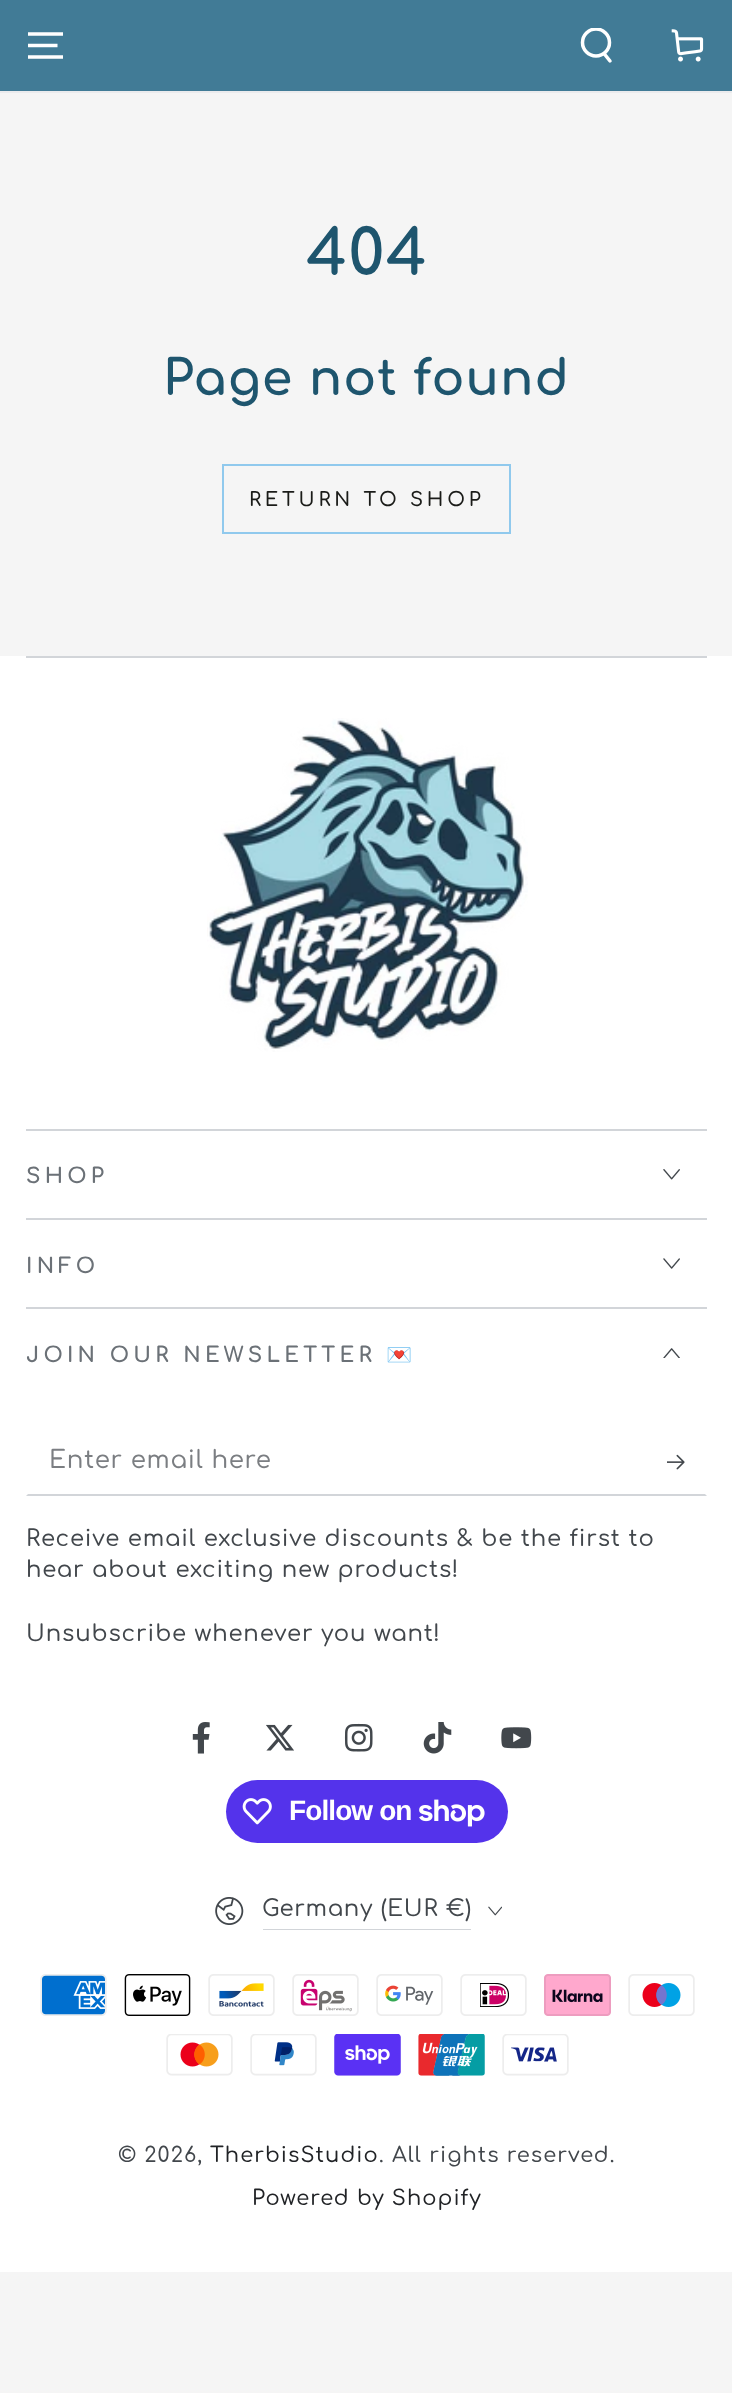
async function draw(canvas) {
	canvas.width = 732;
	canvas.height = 2393;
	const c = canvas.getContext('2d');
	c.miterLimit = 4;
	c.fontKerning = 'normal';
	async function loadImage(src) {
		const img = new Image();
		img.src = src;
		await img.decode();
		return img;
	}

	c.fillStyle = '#f5f5f5';
	c.fillRect(0, 0, 732, 2393);
	c.fillStyle = '#ebebed';
	c.fillRect(0, 91, 732, 2);
	c.fillStyle = '#417b96';
	c.fillRect(0, 0, 732, 91);
	c.beginPath();
	c.moveTo(28, 57);
	c.lineTo(63, 57);
	c.moveTo(28, 45.5);
	c.lineTo(57.5, 45.5);
	c.moveTo(28, 34);
	c.lineTo(63, 34);
	c.strokeStyle = '#fff';
	c.lineWidth = 3.3;
	c.stroke();
	c.save();
	c.beginPath();
	c.rect(579, 28, 35, 35);
	c.clip();
	c.beginPath();
	c.arc(596, 42.5, 13.5, 0, 2 * Math.PI);
	c.lineWidth = 3.5;
	c.stroke();
	c.restore();
	c.beginPath();
	c.moveTo(604, 53.5);
	c.lineTo(610, 61);
	c.lineWidth = 3.5;
	c.lineCap = 'round';
	c.stroke();
	c.drawImage(await loadImage('img1.png'), 671, 29, 33, 33);
	c.letterSpacing = '1.05px';
	c.font = 'bold 63px Comfortaa';
	c.fillStyle = '#1e556e';
	c.fillText('404', 306, 275);
	c.font = 'bold 49px Comfortaa';
	c.fillText('Page not found', 163, 395);
	c.strokeStyle = '#90c9ed';
	c.lineWidth = 2;
	c.strokeRect(223, 465, 287, 68);
	c.letterSpacing = '3.8px';
	c.font = '600 19.25px Comfortaa';
	c.fillStyle = '#1a1b18';
	c.fillText('RETURN TO SHOP', 249, 506);
	for (const [x, y, w, h, color] of [
		[0, 656, 732, 1616, '#fff'],
		[26, 656, 681, 2, '#d2d5d9'],
		[26, 1129, 681, 2, '#d2d5d9'],
	]) {
		c.fillStyle = color;
		c.fillRect(x, y, w, h);
	}
	c.drawImage(await loadImage('img2.png'), 207, 718, 321, 334);
	c.fillRect(26, 1218, 681, 2);
	c.letterSpacing = '4.25px';
	c.font = 'bold 21px Comfortaa';
	c.fillStyle = '#6b7177';
	c.fillText('SHOP', 26, 1183);
	c.drawImage(await loadImage('img3.png'), 663, 1169, 17, 11);
	c.fillStyle = '#d2d5d9';
	c.fillRect(26, 1307, 681, 2);
	c.fillStyle = '#6b7177';
	c.fillText('INFO', 26, 1273);
	c.drawImage(await loadImage('img4.png'), 663, 1258, 17, 11);
	c.fillText('JOIN OUR NEWSLETTER', 26, 1362);
	c.font = 'bold 21px Noto Color Emoji';
	c.fillText('💌', 386, 1362);
	c.drawImage(await loadImage('img5.png'), 663, 1348, 17, 10);
	c.fillStyle = '#d2d5d9';
	c.beginPath();
	c.moveTo(707, 1496);
	c.lineTo(26, 1496);
	c.lineTo(28, 1494);
	c.lineTo(705, 1494);
	c.closePath();
	c.fill();
	c.letterSpacing = '0.75px';
	c.font = '500 24.5px Comfortaa';
	c.fillStyle = '#7b7e82';
	c.fillText('Enter email here', 49, 1468);
	c.drawImage(await loadImage('img6.png'), 667, 1454, 18, 16);
	c.letterSpacing = '0.88px';
	c.font = '500 22.75px Comfortaa';
	c.fillStyle = '#42474c';
	for (const [text, x, y] of [
		['Receive email exclusive discounts & be the first to', 26, 1546],
		['hear about exciting new products!', 26, 1577],
		['Unsubscribe whenever you want!', 26, 1641],
	]) {
		c.fillText(text, x, y);
	}
	c.drawImage(await loadImage('img7.png'), 192, 1722, 18, 32);
	c.drawImage(await loadImage('img8.png'), 266, 1724, 28, 27);
	c.drawImage(await loadImage('img9.png'), 344, 1723, 29, 29);
	c.drawImage(await loadImage('img10.png'), 423, 1722, 29, 32);
	c.drawImage(await loadImage('img11.png'), 501, 1727, 31, 22);
	c.fillStyle = '#5433eb';
	c.beginPath();
	c.roundRect(226, 1780, 282, 63, 31.5);
	c.fill();
	c.drawImage(await loadImage('img12.png'), 242, 1798, 30, 27);
	c.letterSpacing = '-0.9px';
	c.font = 'bold 28px Liberation Sans';
	c.fillStyle = '#fff';
	c.fillText('Follow on', 289, 1820);
	c.drawImage(await loadImage('img13.png'), 419, 1799, 66, 28);
	c.drawImage(await loadImage('img14.png'), 215, 1897, 29, 28);
	c.fillStyle = '#d2d5d9';
	c.fillRect(263, 1929, 208, 1);
	c.letterSpacing = '0.75px';
	c.font = '500 22.75px Comfortaa';
	c.fillStyle = '#42474c';
	c.fillText('Germany (EUR €)', 262, 1916);
	c.drawImage(await loadImage('img15.png'), 488, 1906, 14, 10);
	c.drawImage(await loadImage('img16.png'), 40, 1974, 67, 42);
	c.drawImage(await loadImage('img17.png'), 124, 1974, 67, 42);
	c.drawImage(await loadImage('img18.png'), 208, 1974, 67, 42);
	c.drawImage(await loadImage('img19.png'), 292, 1974, 67, 42);
	c.drawImage(await loadImage('img20.png'), 376, 1974, 67, 42);
	c.drawImage(await loadImage('img21.png'), 460, 1974, 67, 42);
	c.drawImage(await loadImage('img22.png'), 544, 1974, 67, 42);
	c.drawImage(await loadImage('img23.png'), 628, 1974, 67, 42);
	c.drawImage(await loadImage('img24.png'), 166, 2034, 67, 42);
	c.drawImage(await loadImage('img25.png'), 250, 2034, 67, 42);
	c.drawImage(await loadImage('img26.png'), 334, 2034, 67, 42);
	c.drawImage(await loadImage('img27.png'), 418, 2034, 67, 42);
	c.drawImage(await loadImage('img28.png'), 502, 2034, 67, 42);
	c.letterSpacing = '1.05px';
	c.font = '500 21px Comfortaa';
	c.fillText('© 2026,', 118, 2162);
	c.fillStyle = '#212326';
	c.fillText('TherbisStudio', 210, 2162);
	c.fillStyle = '#42474c';
	c.fillText('. All rights reserved.', 379, 2162);
	c.fillStyle = '#212326';
	c.fillText('Powered by Shopify', 252, 2205);
}

draw(document.querySelector('canvas'));
